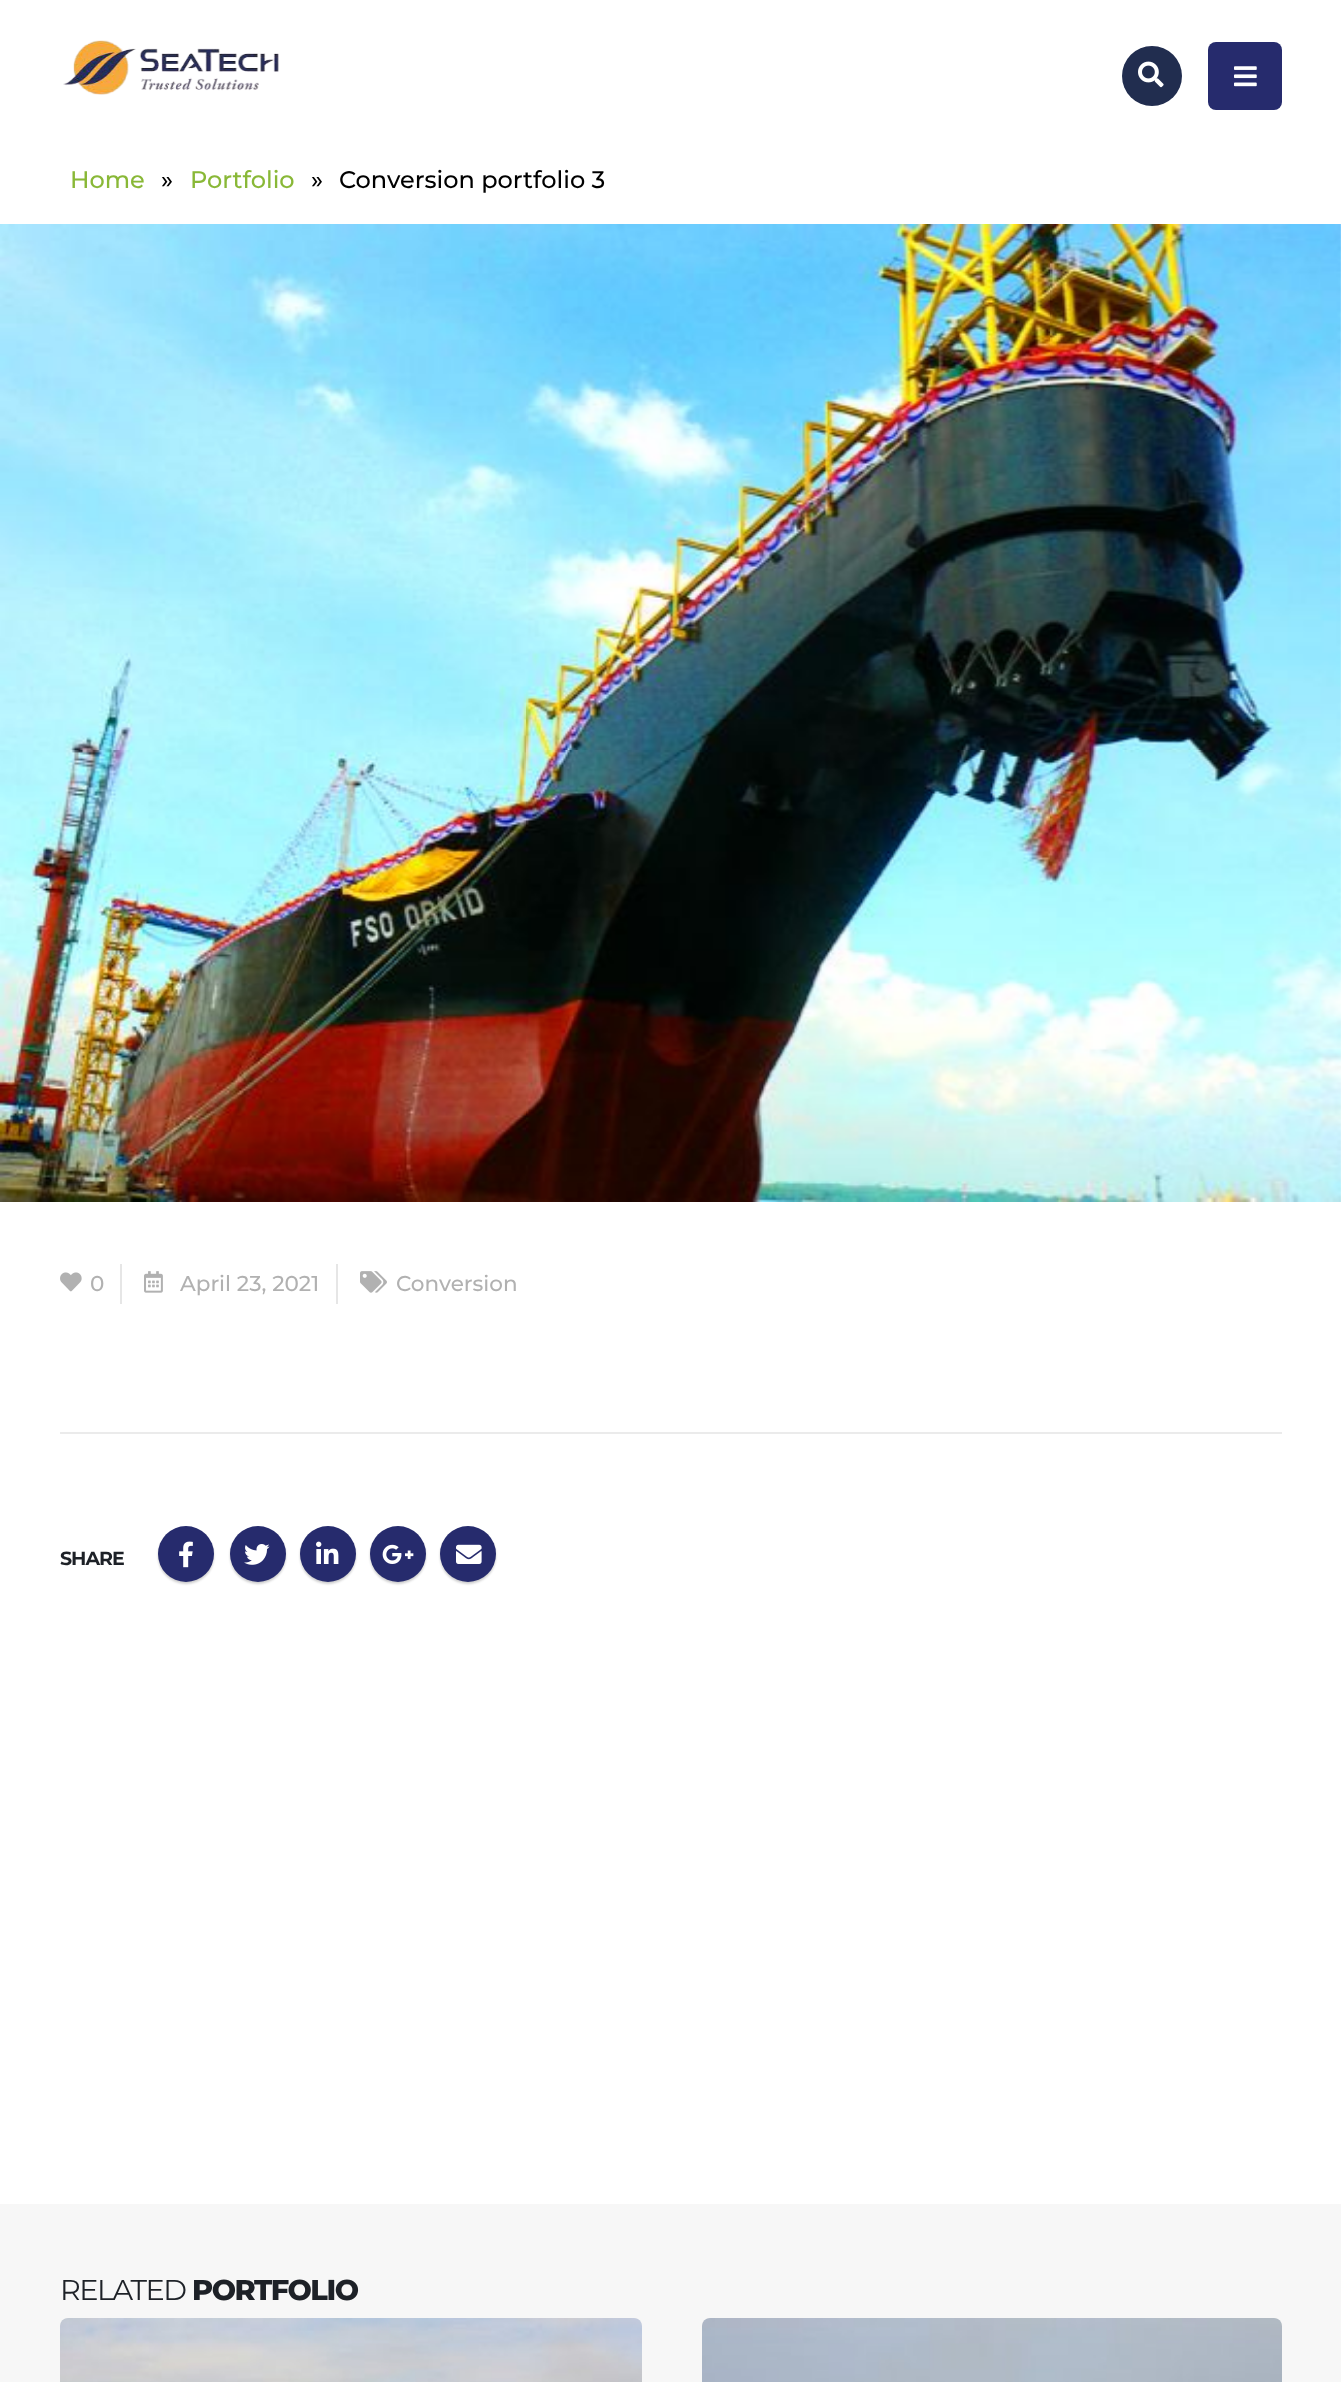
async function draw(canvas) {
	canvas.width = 1341;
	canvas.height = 2382;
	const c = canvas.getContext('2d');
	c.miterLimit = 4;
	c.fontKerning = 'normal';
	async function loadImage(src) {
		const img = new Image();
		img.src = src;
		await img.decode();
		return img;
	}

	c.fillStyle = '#fff';
	c.fillRect(0, 0, 1341, 2382);
	c.drawImage(await loadImage('img1.png'), 63, 40, 216, 55);
	c.fillStyle = '#212d4f';
	c.beginPath();
	c.arc(1152, 76, 30, 0, 2 * Math.PI);
	c.fill();
	c.drawImage(await loadImage('img2.png'), 1138, 61, 26, 27);
	c.fillStyle = '#262b6d';
	c.beginPath();
	c.roundRect(1208, 42, 74, 68, 8);
	c.fill();
	c.drawImage(await loadImage('img3.png'), 1234, 66, 23, 21);
	c.font = '500 24px Montserrat';
	c.fillStyle = '#89b837';
	c.fillText('Home', 70, 188);
	c.fillStyle = '#000';
	c.fillText('»', 161, 188);
	c.fillStyle = '#89b837';
	c.fillText('Portfolio', 190, 188);
	c.fillStyle = '#000';
	c.fillText('»', 311, 188);
	c.fillText('Conversion portfolio 3', 339, 188);
	c.drawImage(await loadImage('img4.png'), 0, 224, 1341, 978);
	c.fillStyle = '#e6e6e6';
	c.fillRect(120, 1264, 2, 40);
	c.drawImage(await loadImage('img5.png'), 60, 1272, 22, 20);
	c.font = '500 21.5px Montserrat';
	c.fillStyle = '#b1b1b1';
	c.fillText('0', 90, 1291);
	c.fillStyle = '#e6e6e6';
	c.fillRect(336, 1264, 2, 40);
	c.drawImage(await loadImage('img6.png'), 144, 1271, 19, 22);
	c.fillStyle = '#b1b1b1';
	c.fillText('April 23, 2021', 180, 1291);
	c.drawImage(await loadImage('img7.png'), 360, 1271, 27, 22);
	c.fillText('Conversion', 396, 1291);
	c.fillStyle = '#ebebeb';
	c.fillRect(60, 1432, 1222, 2);
	c.letterSpacing = '-1px';
	c.font = 'bold 19px Montserrat';
	c.fillStyle = '#1d2127';
	c.fillText('SHARE', 60, 1565);
	c.fillStyle = '#00000033';
	c.filter = 'blur(1px)';
	c.beginPath();
	c.roundRect(158, 1528, 56, 56, 28);
	c.fill();
	c.filter = 'none';
	c.fillStyle = '#262b6d';
	c.beginPath();
	c.arc(186, 1554, 28, 0, 2 * Math.PI);
	c.fill();
	c.drawImage(await loadImage('img8.png'), 179, 1541, 14, 27);
	c.fillStyle = '#00000033';
	c.filter = 'blur(1px)';
	c.beginPath();
	c.roundRect(230, 1528, 56, 56, 28);
	c.fill();
	c.filter = 'none';
	c.fillStyle = '#262b6d';
	c.beginPath();
	c.arc(258, 1554, 28, 0, 2 * Math.PI);
	c.fill();
	c.drawImage(await loadImage('img9.png'), 244, 1544, 26, 21);
	c.fillStyle = '#00000033';
	c.filter = 'blur(1px)';
	c.beginPath();
	c.roundRect(300, 1528, 56, 56, 28);
	c.fill();
	c.filter = 'none';
	c.fillStyle = '#262b6d';
	c.beginPath();
	c.arc(328, 1554, 28, 0, 2 * Math.PI);
	c.fill();
	c.drawImage(await loadImage('img10.png'), 316, 1541, 23, 23);
	c.fillStyle = '#00000033';
	c.filter = 'blur(1px)';
	c.beginPath();
	c.roundRect(370, 1528, 56, 56, 28);
	c.fill();
	c.filter = 'none';
	c.fillStyle = '#262b6d';
	c.beginPath();
	c.arc(398, 1554, 28, 0, 2 * Math.PI);
	c.fill();
	c.drawImage(await loadImage('img11.png'), 382, 1544, 32, 20);
	c.fillStyle = '#00000033';
	c.filter = 'blur(1px)';
	c.beginPath();
	c.roundRect(440, 1528, 56, 56, 28);
	c.fill();
	c.filter = 'none';
	c.fillStyle = '#262b6d';
	c.beginPath();
	c.arc(468, 1554, 28, 0, 2 * Math.PI);
	c.fill();
	c.drawImage(await loadImage('img12.png'), 456, 1544, 26, 20);
	c.fillStyle = '#f7f7f7';
	c.fillRect(0, 2204, 1341, 178);
	c.letterSpacing = '-1.5px';
	c.font = '28.75px Montserrat';
	c.fillStyle = '#1d2127';
	c.fillText('RELATED', 60, 2300);
	c.font = '800 28.75px Montserrat';
	c.fillText('PORTFOLIO', 192, 2300);
	c.drawImage(await loadImage('img13.png'), 60, 2318, 582, 64);
	c.drawImage(await loadImage('img14.png'), 702, 2318, 580, 64);
}

draw(document.querySelector('canvas'));
